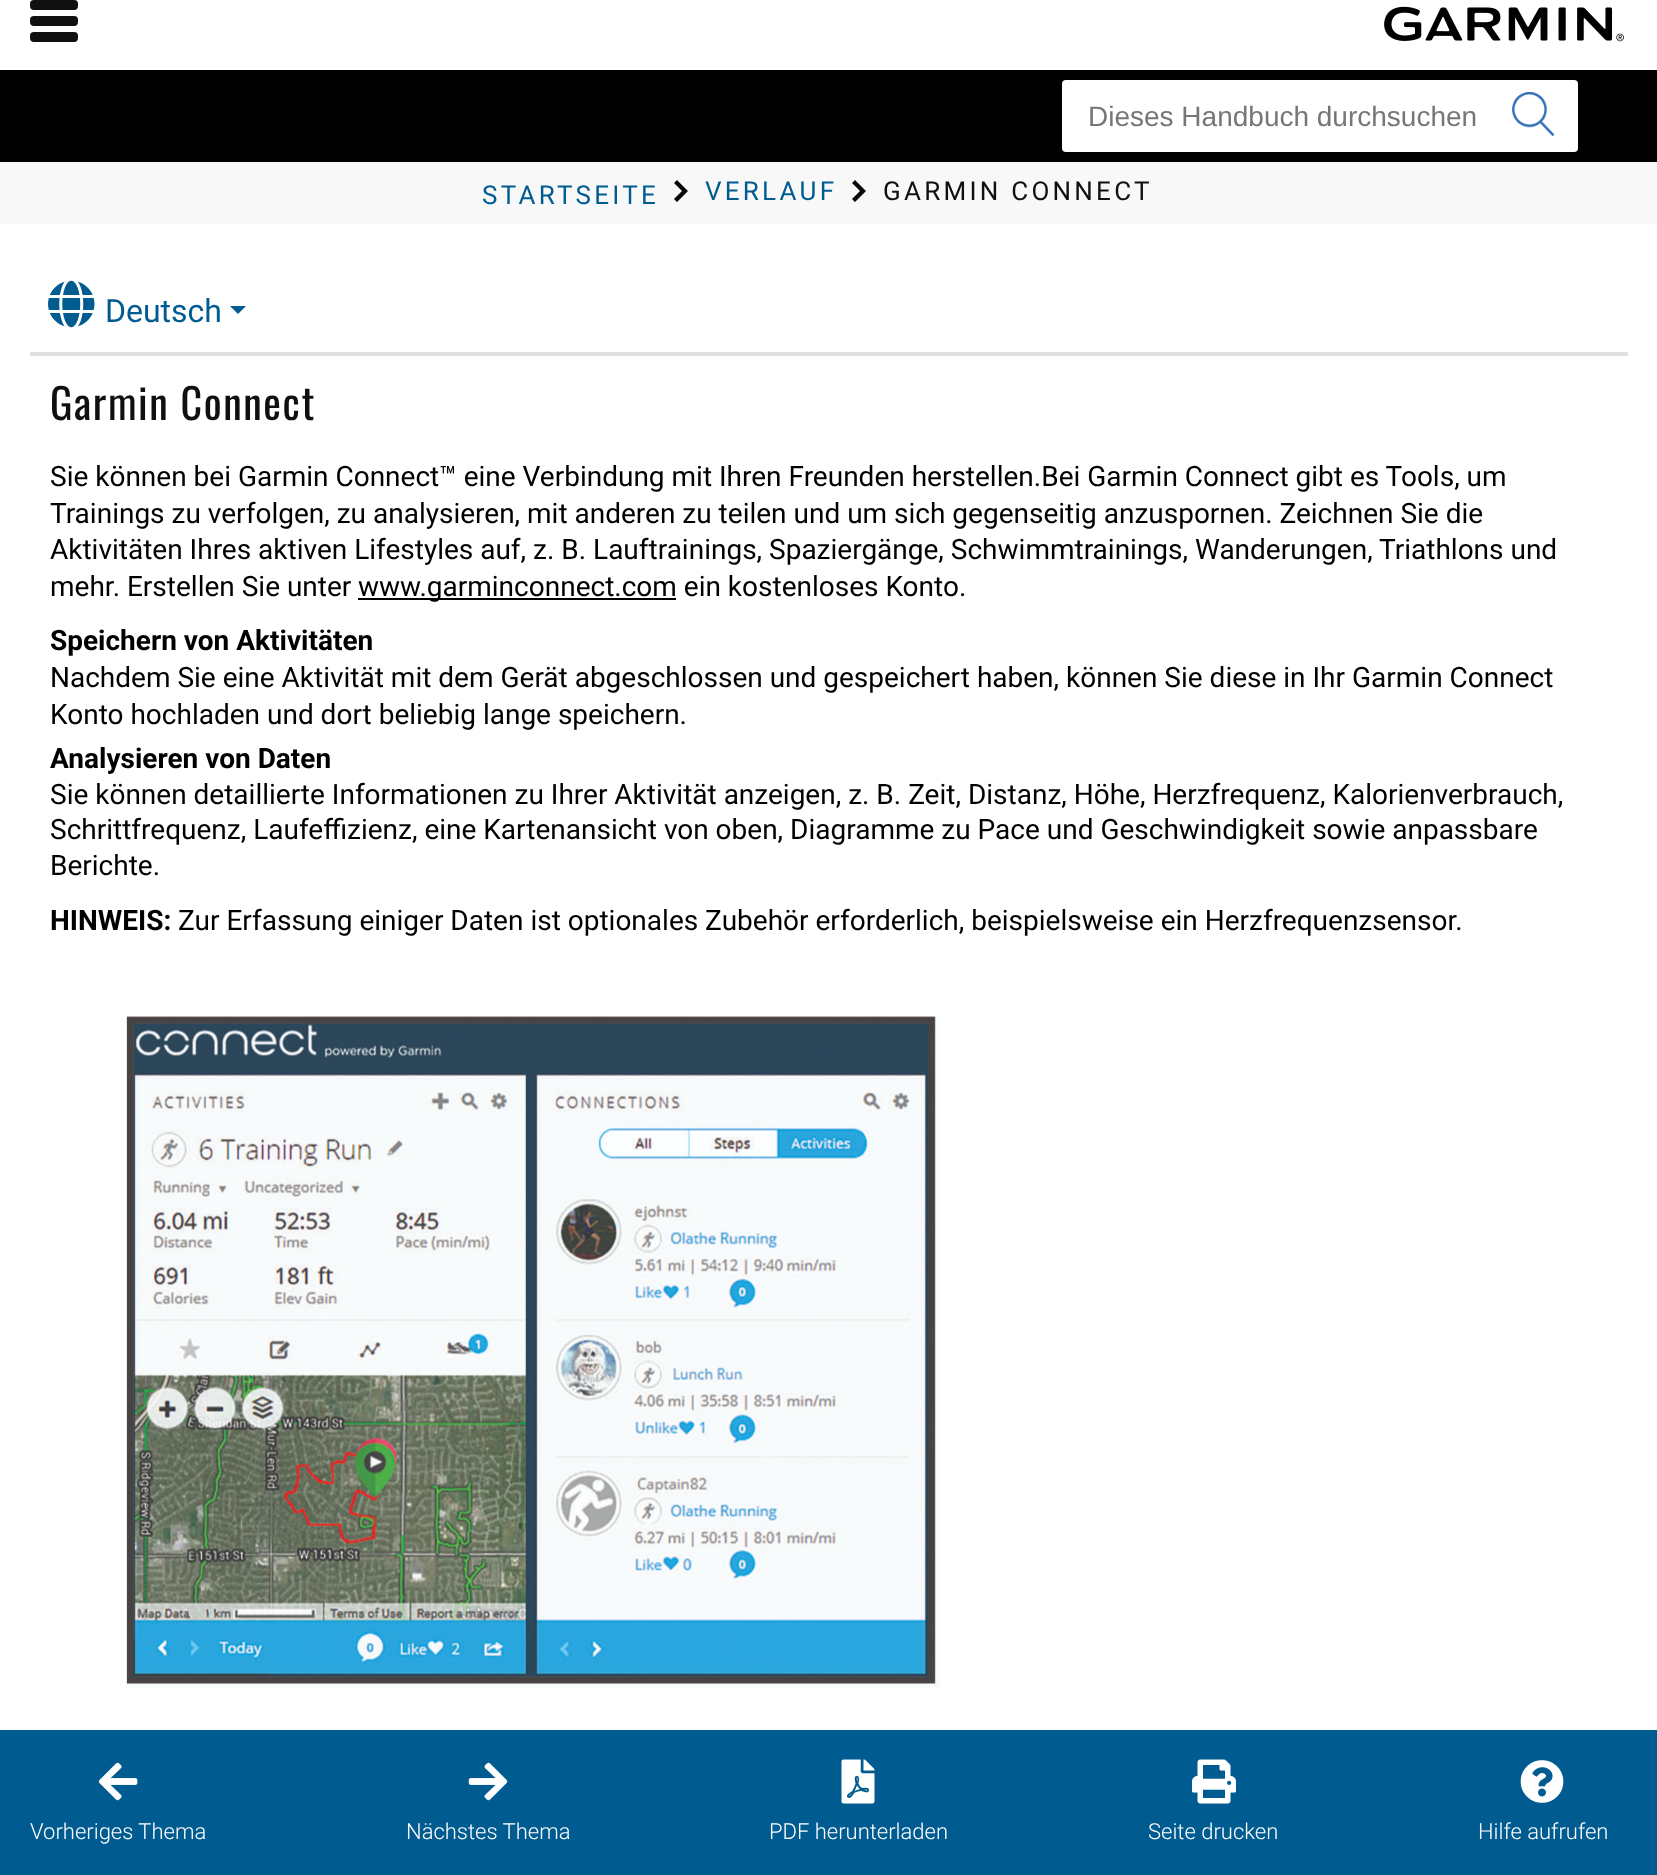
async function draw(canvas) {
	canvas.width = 1657;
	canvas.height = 1875;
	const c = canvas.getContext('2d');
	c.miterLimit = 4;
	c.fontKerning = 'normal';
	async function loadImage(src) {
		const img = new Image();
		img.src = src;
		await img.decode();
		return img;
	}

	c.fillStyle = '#fff';
	c.fillRect(0, 0, 1657, 1875);
	c.fillStyle = '#101010';
	c.beginPath();
	c.roundRect(30, 0, 48, 10, 4);
	c.fill();
	c.beginPath();
	c.roundRect(30, 16, 48, 10, 4);
	c.fill();
	c.beginPath();
	c.roundRect(30, 32, 48, 10, 4);
	c.fill();
	c.drawImage(await loadImage('img1.png'), 1384, 6, 240, 36);
	c.fillStyle = '#000';
	c.fillRect(0, 70, 1657, 92);
	c.fillStyle = '#fff';
	c.beginPath();
	c.roundRect(1062, 80, 516, 72, 4);
	c.fill();
	c.font = '28px Liberation Sans';
	c.fillStyle = '#767676';
	c.fillText('Dieses Handbuch durchsuchen', 1088, 126);
	c.drawImage(await loadImage('img2.png'), 1512, 92, 42, 44);
	c.fillStyle = '#f8f8f8';
	c.fillRect(0, 162, 1657, 62);
	c.letterSpacing = '3.25px';
	c.font = '26px Roboto';
	c.fillStyle = '#005c90';
	c.fillText('STARTSEITE', 482, 204);
	c.fillStyle = '#090909';
	c.beginPath();
	c.moveTo(682, 191);
	c.lineTo(674, 199);
	c.lineTo(677, 202);
	c.lineTo(688, 191);
	c.lineTo(677, 180);
	c.lineTo(674, 183);
	c.closePath();
	c.fill();
	c.fillStyle = '#005c90';
	c.fillText('VERLAUF', 705, 200);
	c.fillStyle = '#090909';
	c.beginPath();
	c.moveTo(860, 191);
	c.lineTo(852, 199);
	c.lineTo(855, 202);
	c.lineTo(866, 191);
	c.lineTo(855, 180);
	c.lineTo(852, 183);
	c.closePath();
	c.fill();
	c.fillStyle = '#101010';
	c.fillText('GARMIN CONNECT', 883, 200);
	c.fillStyle = '#e0e0e0';
	c.fillRect(30, 352, 1598, 4);
	c.drawImage(await loadImage('img3.png'), 48, 280, 47, 48);
	c.letterSpacing = '0px';
	c.font = '32px Roboto';
	c.fillStyle = '#005c90';
	c.fillText('Deutsch', 105, 322);
	c.beginPath();
	c.moveTo(230, 306);
	c.lineTo(246, 306);
	c.lineTo(238, 314);
	c.closePath();
	c.fill();
	c.letterSpacing = '1.6px';
	c.font = '42px Oswald';
	c.fillStyle = '#101010';
	c.fillText('Garmin Connect', 50, 420);
	c.letterSpacing = '0px';
	c.font = '28px Roboto';
	c.fillStyle = '#000';
	for (const [text, x, y] of [
		['Sie können bei Garmin Connect™ eine Verbindung mit Ihren Freunden herstellen.Bei Garmin Connect gibt es Tools, um', 50, 486],
		['Trainings zu verfolgen, zu analysieren, mit anderen zu teilen und um sich gegenseitig anzuspornen. Zeichnen Sie die', 50, 523],
		['Aktivitäten Ihres aktiven Lifestyles auf, z. B. Lauftrainings, Spaziergänge, Schwimmtrainings, Wanderungen, Triathlons und', 50, 559],
		['mehr. Erstellen Sie unter', 50, 596],
	]) {
		c.fillText(text, x, y);
	}
	c.fillRect(358, 598, 318, 2);
	c.fillText('www.garminconnect.com ein kostenloses Konto.', 358, 596);
	c.font = 'bold 28px Roboto';
	c.fillText('Speichern von Aktivitäten', 50, 650);
	c.font = '28px Roboto';
	c.fillText('Nachdem Sie eine Aktivität mit dem Gerät abgeschlossen und gespeichert haben, können Sie diese in Ihr Garmin Connect', 50, 687);
	c.fillText('Konto hochladen und dort beliebig lange speichern.', 50, 724);
	c.font = 'bold 28px Roboto';
	c.fillText('Analysieren von Daten', 50, 768);
	c.font = '28px Roboto';
	for (const [text, x, y] of [
		['Sie können detaillierte Informationen zu Ihrer Aktivität anzeigen, z. B. Zeit, Distanz, Höhe, Herzfrequenz, Kalorienverbrauch,', 50, 804],
		['Schrittfrequenz, Laufeffizienz, eine Kartenansicht von oben, Diagramme zu Pace und Geschwindigkeit sowie anpassbare', 50, 839],
		['Berichte.', 50, 875],
	]) {
		c.fillText(text, x, y);
	}
	c.font = 'bold 28px Roboto';
	c.fillText('HINWEIS:', 50, 930);
	c.font = '28px Roboto';
	c.fillText('Zur Erfassung einiger Daten ist optionales Zubehör erforderlich, beispielsweise ein Herzfrequenzsensor.', 178, 930);
	c.drawImage(await loadImage('img4.png'), 126, 1015, 814, 673);
	c.fillStyle = '#005c90';
	c.fillRect(0, 1730, 1657, 145);
	c.drawImage(await loadImage('img5.png'), 98, 1762, 40, 39);
	c.font = '300 22px Roboto';
	c.fillStyle = '#fff';
	c.fillText('Vorheriges Thema', 30, 1839);
	c.drawImage(await loadImage('img6.png'), 468, 1762, 40, 39);
	c.fillText('Nächstes Thema', 406, 1839);
	c.drawImage(await loadImage('img7.png'), 841, 1759, 34, 45);
	c.fillText('PDF herunterladen', 769, 1839);
	c.drawImage(await loadImage('img8.png'), 1192, 1759, 44, 45);
	c.fillText('Seite drucken', 1148, 1839);
	c.drawImage(await loadImage('img9.png'), 1520, 1760, 44, 43);
	c.fillText('Hilfe aufrufen', 1478, 1839);
}

draw(document.querySelector('canvas'));
